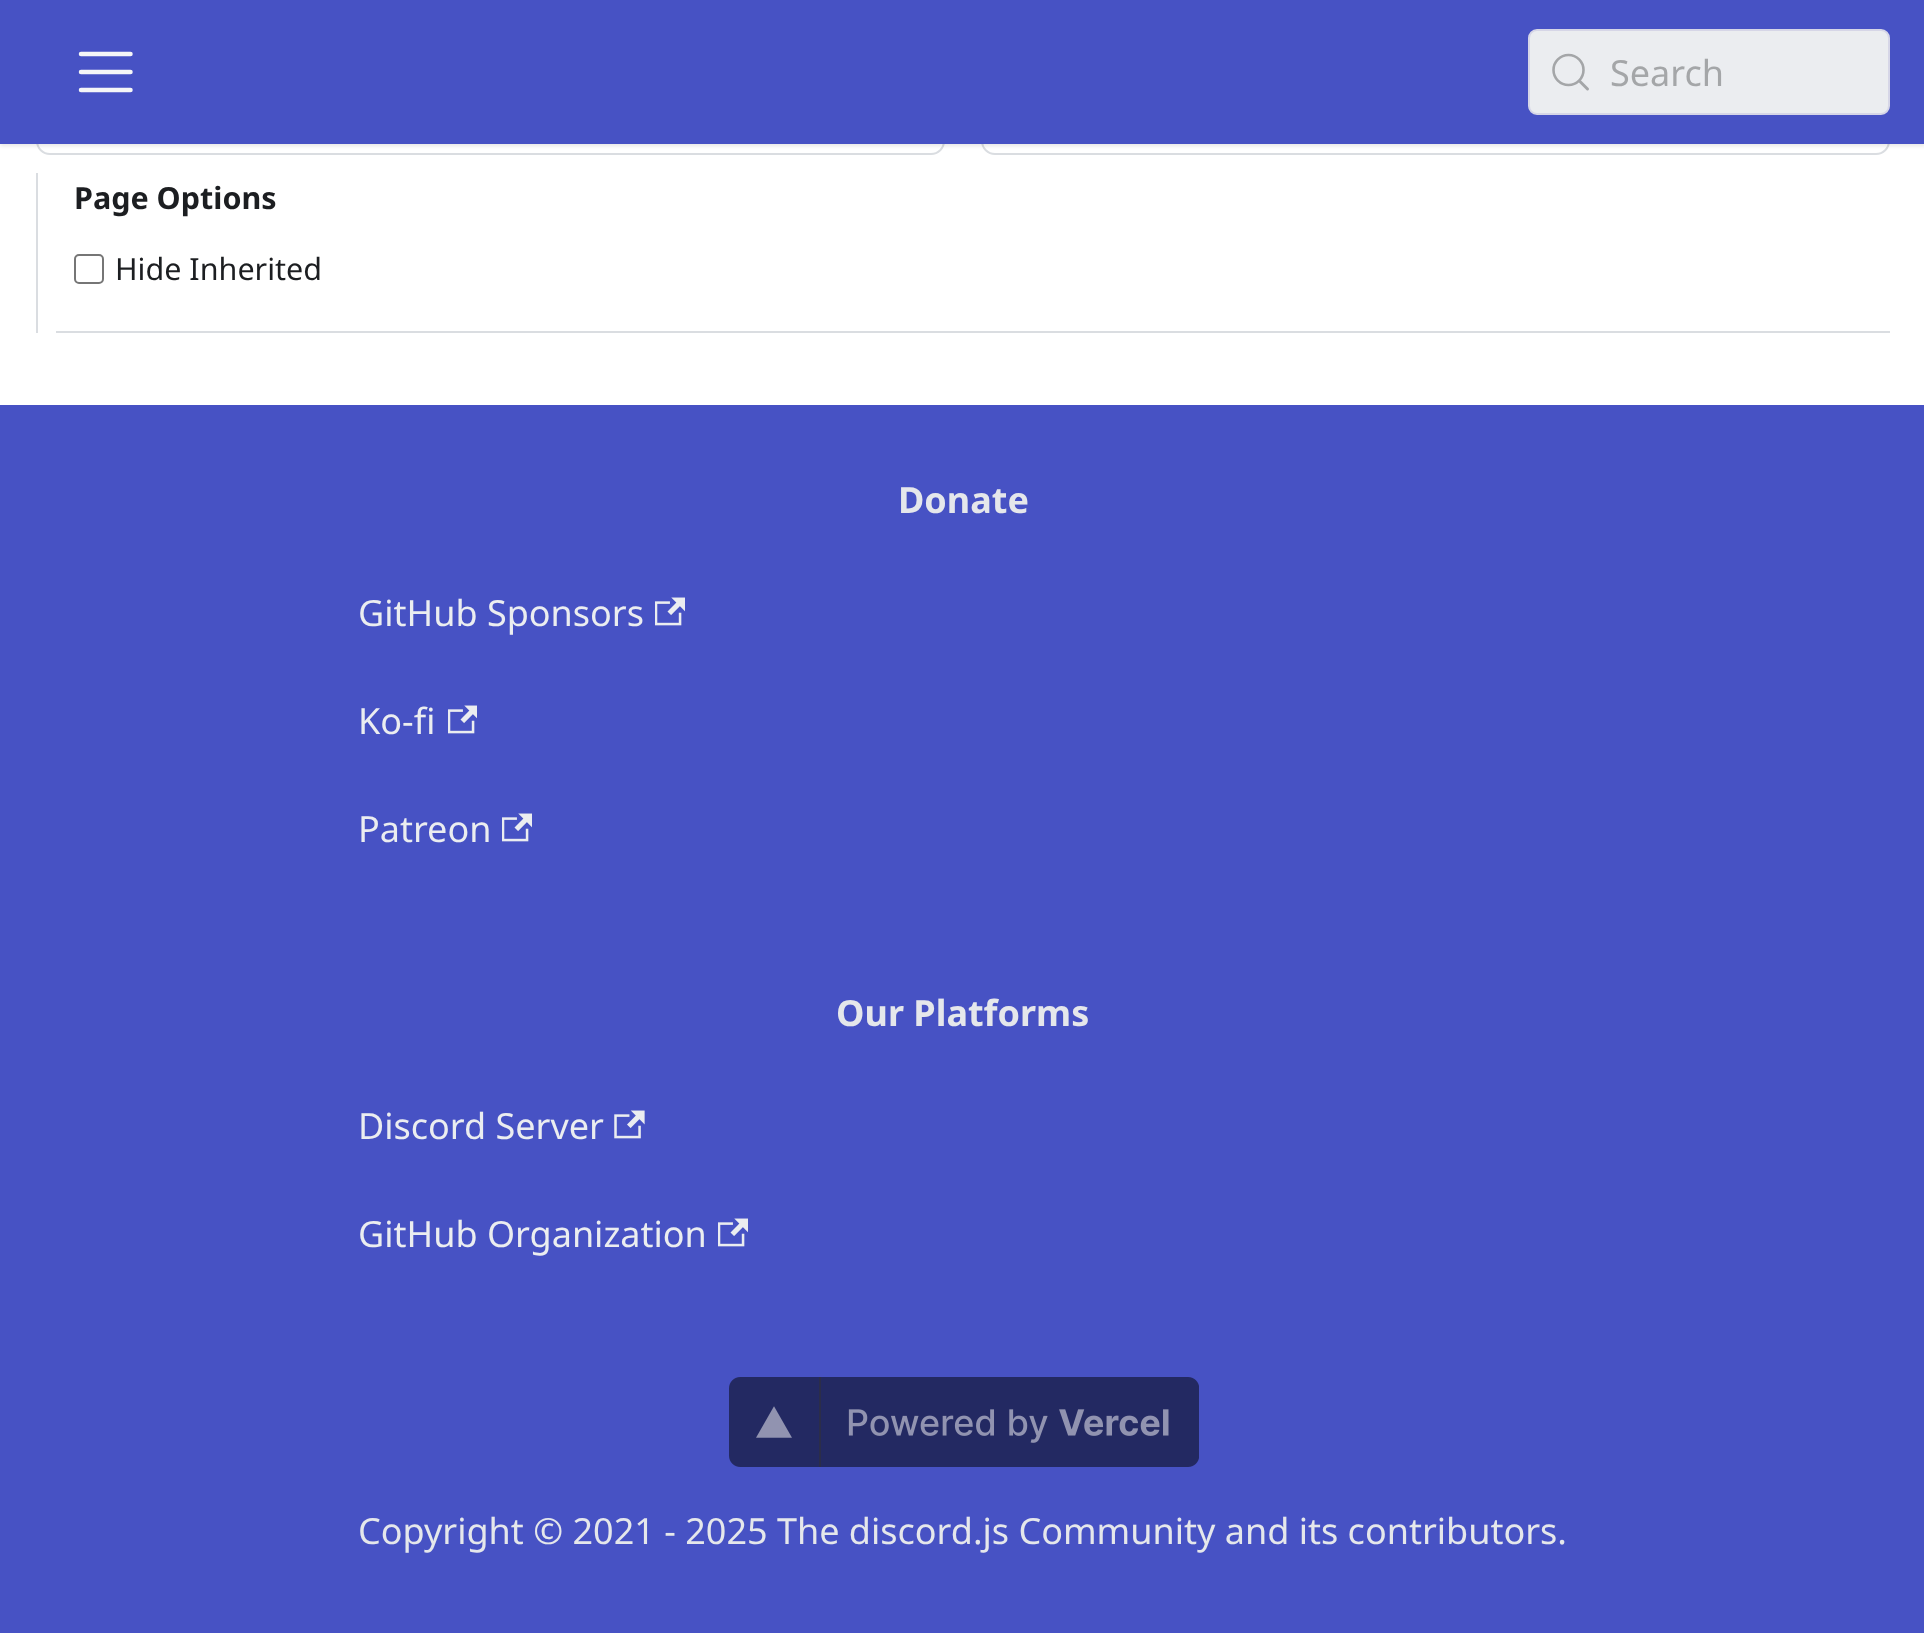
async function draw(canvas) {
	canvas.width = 1924;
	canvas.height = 1633;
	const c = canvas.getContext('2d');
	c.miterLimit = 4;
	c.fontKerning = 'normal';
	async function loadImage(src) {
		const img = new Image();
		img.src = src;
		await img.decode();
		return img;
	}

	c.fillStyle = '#fff';
	c.fillRect(0, 0, 1924, 1633);
	c.beginPath();
	c.roundRect(37, -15, 907, 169, 13);
	c.strokeStyle = '#dadde1';
	c.lineWidth = 2;
	c.stroke();
	c.beginPath();
	c.roundRect(982, -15, 907, 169, 13);
	c.stroke();
	c.fillStyle = '#0000001a';
	c.filter = 'blur(2px)';
	c.beginPath();
	c.rect(0, 2, 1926, 144);
	c.fill();
	c.filter = 'none';
	c.fillStyle = '#4752c4';
	c.fillRect(0, 0, 1924, 144);
	c.beginPath();
	c.moveTo(81, 54);
	c.lineTo(130.5, 54);
	c.moveTo(81, 72);
	c.lineTo(130.5, 72);
	c.moveTo(81, 90);
	c.lineTo(130.5, 90);
	c.strokeStyle = '#f5f6f7';
	c.lineWidth = 4.5;
	c.lineCap = 'round';
	c.stroke();
	c.fillStyle = '#ebedf0';
	c.beginPath();
	c.roundRect(1529, 30, 360, 84, 8);
	c.fill();
	c.strokeStyle = '#d6d6e7';
	c.lineWidth = 2;
	c.stroke();
	c.beginPath();
	c.arc(1568.5, 70, 15, 0, 2 * Math.PI);
	c.strokeStyle = '#a4a6a8';
	c.lineWidth = 2.6;
	c.stroke();
	c.beginPath();
	c.moveTo(1587.5, 89);
	c.lineTo(1579.5, 81);
	c.lineWidth = 3;
	c.lineJoin = 'round';
	c.stroke();
	c.font = '36px Noto Sans';
	c.fillStyle = '#a4a6a8';
	c.fillText('Search', 1610, 86);
	c.fillStyle = '#dadde1';
	c.fillRect(36, 173, 2, 160);
	c.font = 'bold 30.5px Noto Sans';
	c.fillStyle = '#1c1e21';
	c.fillText('Page Options', 74, 209);
	c.beginPath();
	c.roundRect(75, 255, 28, 28, 4);
	c.strokeStyle = '#767676';
	c.lineWidth = 2;
	c.lineJoin = 'miter';
	c.stroke();
	c.font = '30.5px Noto Sans';
	c.fillText('Hide Inherited', 115, 280);
	c.fillStyle = '#dadde1';
	c.fillRect(56, 331, 1834, 2);
	c.fillStyle = '#4752c4';
	c.fillRect(0, 405, 1924, 1228);
	c.font = 'bold 36px Noto Sans';
	c.fillStyle = '#e5e7eb';
	c.fillText('Donate', 898, 513);
	c.font = '36px Noto Sans';
	c.fillStyle = '#ebedf0';
	c.fillText('GitHub Sponsors', 358, 626);
	c.drawImage(await loadImage('img1.png'), 655, 597, 30, 29);
	c.fillText('Ko-fi', 358, 734);
	c.drawImage(await loadImage('img2.png'), 448, 705, 29, 29);
	c.fillText('Patreon', 358, 842);
	c.drawImage(await loadImage('img1.png'), 502, 813, 30, 29);
	c.font = 'bold 36px Noto Sans';
	c.fillStyle = '#e5e7eb';
	c.fillText('Our Platforms', 836, 1026);
	c.font = '36px Noto Sans';
	c.fillStyle = '#ebedf0';
	c.fillText('Discord Server', 358, 1139);
	c.drawImage(await loadImage('img3.png'), 614, 1110, 31, 29);
	c.fillText('GitHub Organization', 358, 1247);
	c.drawImage(await loadImage('img1.png'), 718, 1218, 30, 29);
	c.drawImage(await loadImage('img4.png'), 729, 1377, 470, 90);
	c.fillStyle = '#e5e7eb';
	c.fillText('Copyright © 2021 - 2025 The discord.js Community and its contributors.', 358, 1544);
}

draw(document.querySelector('canvas'));
